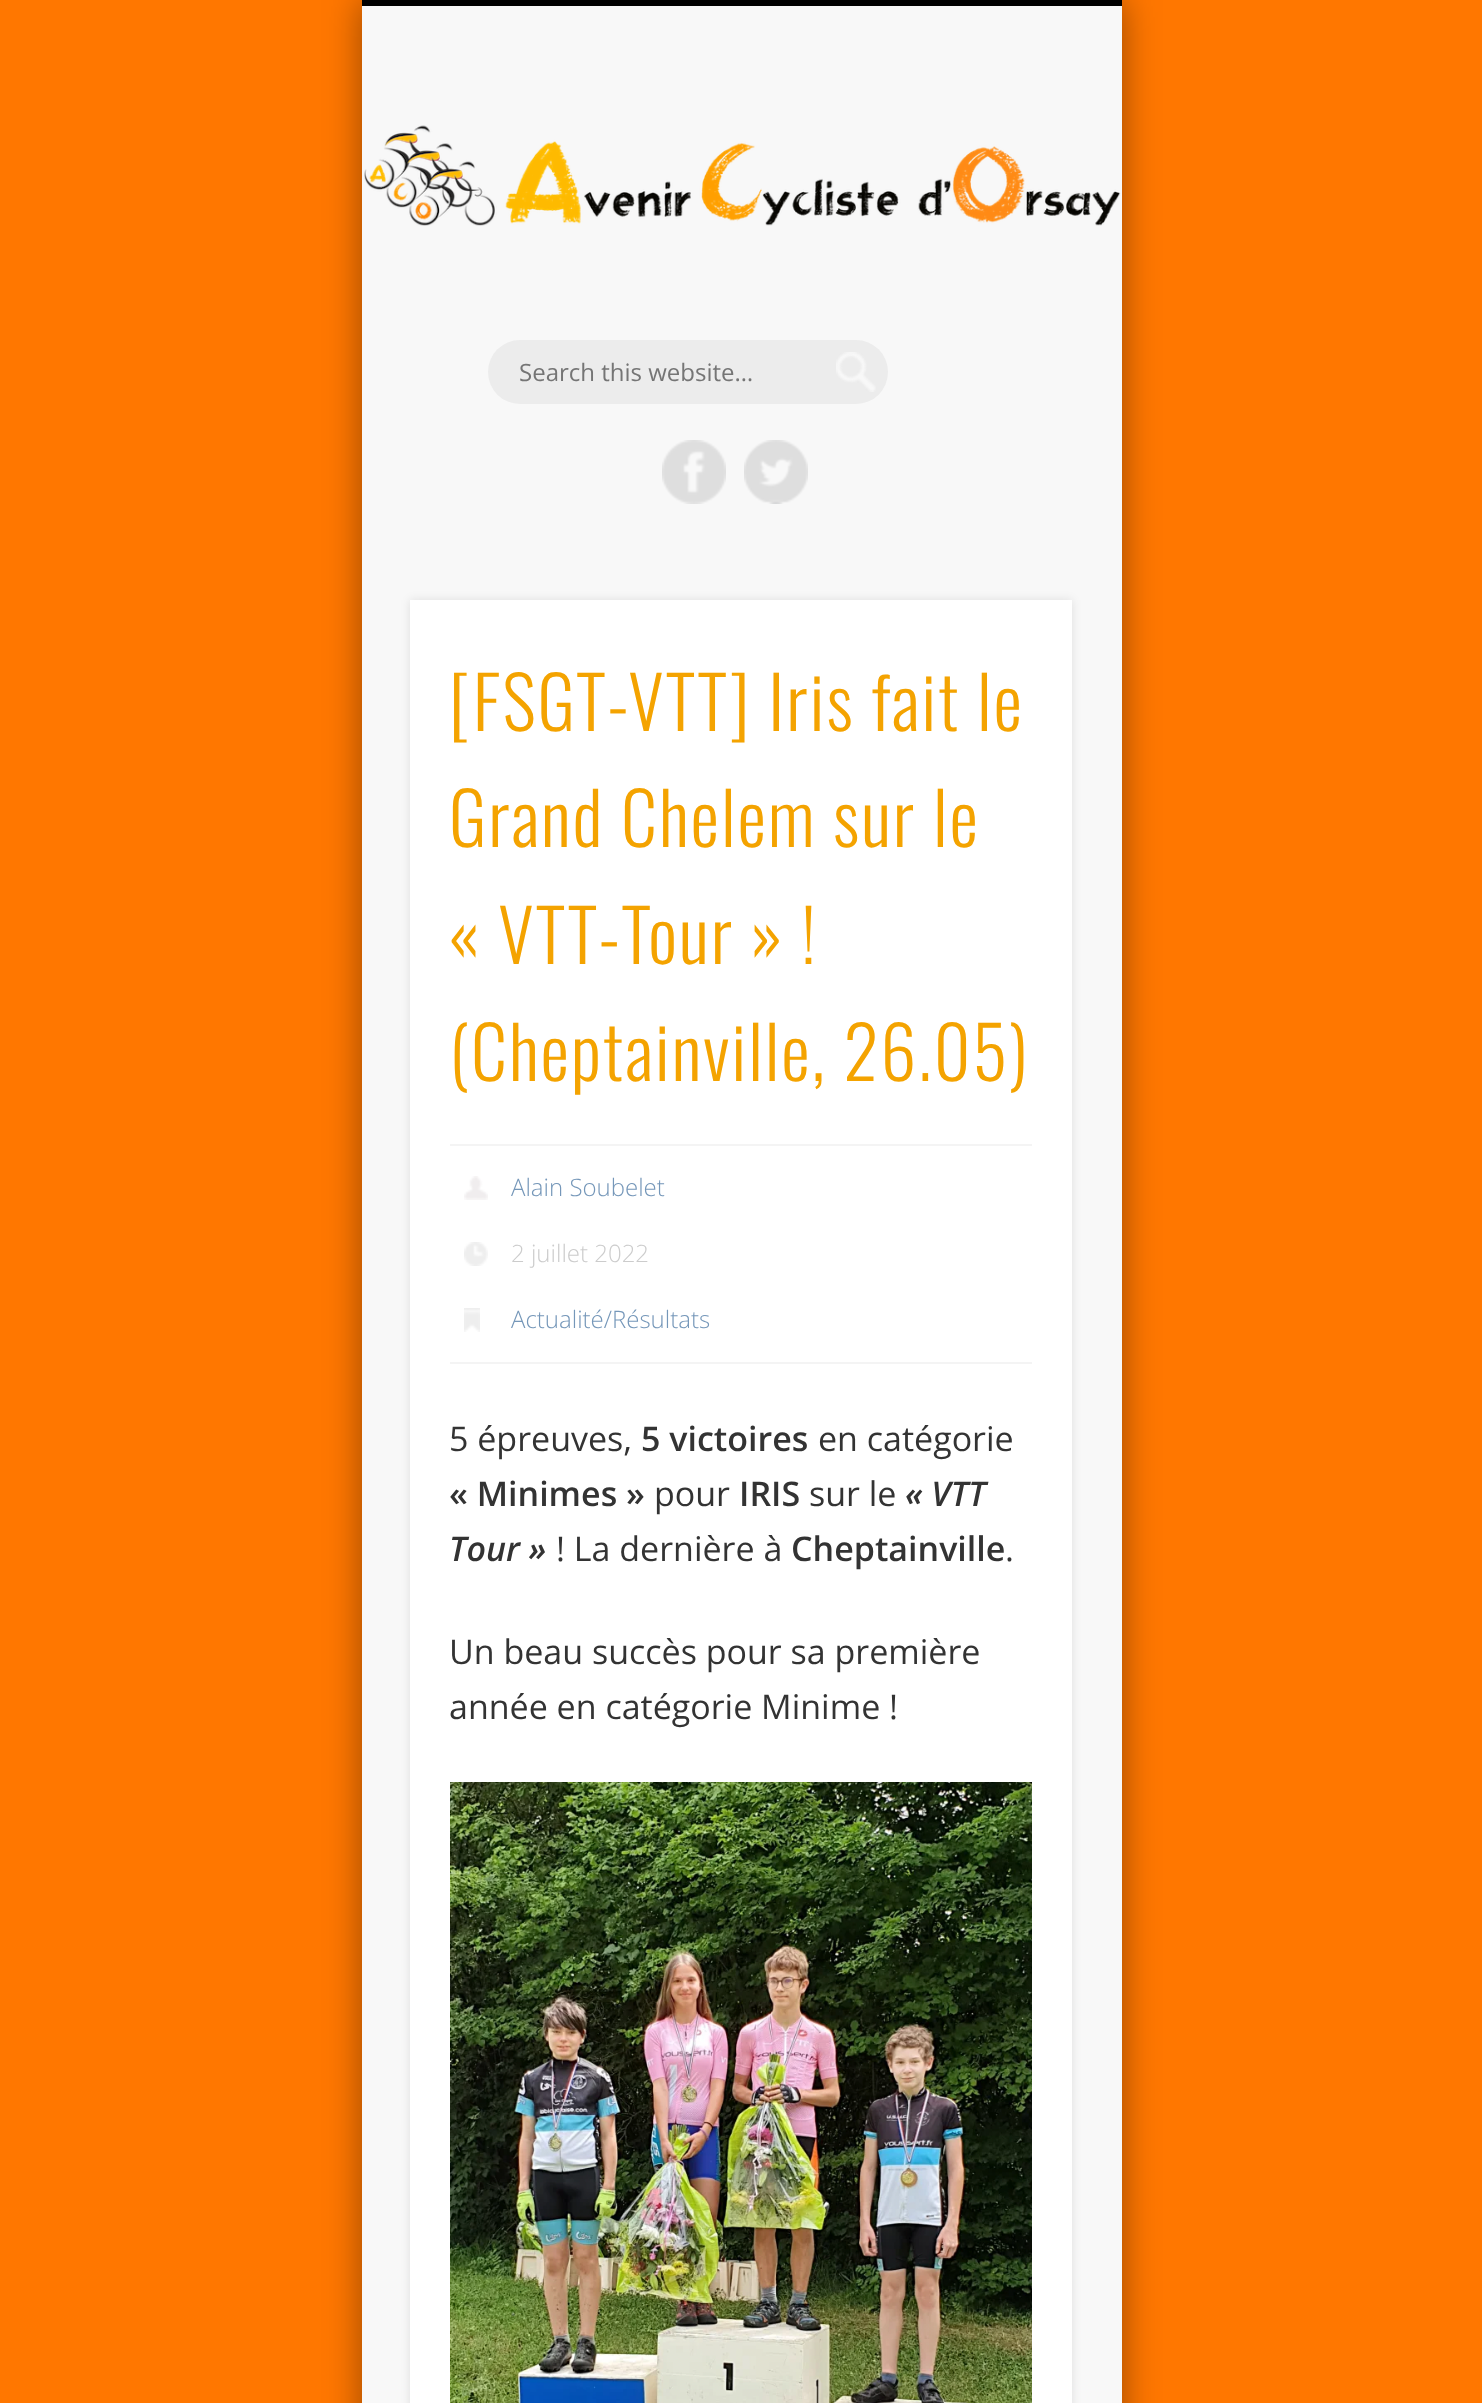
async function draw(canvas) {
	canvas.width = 1482;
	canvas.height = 2403;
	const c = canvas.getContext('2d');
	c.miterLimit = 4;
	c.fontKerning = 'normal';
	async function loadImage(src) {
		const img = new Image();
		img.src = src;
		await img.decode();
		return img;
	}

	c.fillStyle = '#f70';
	c.fillRect(0, 0, 1482, 2403);
	c.fillStyle = '#00000066';
	c.filter = 'blur(18px)';
	c.beginPath();
	c.rect(362, 0, 760, 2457);
	c.fill();
	c.filter = 'none';
	c.fillStyle = '#f8f8f8';
	c.fillRect(362, 6, 760, 2397);
	c.fillStyle = '#000';
	c.fillRect(362, 0, 760, 6);
	c.drawImage(await loadImage('img1.png'), 364, 125, 757, 101);
	c.fillStyle = '#ececec';
	c.beginPath();
	c.roundRect(488, 340, 400, 64, 32);
	c.fill();
	c.drawImage(await loadImage('img2.png'), 836, 352, 40, 40);
	c.font = '24px Open Sans';
	c.fillStyle = '#757575';
	c.fillText('Search this website…', 519, 381);
	c.drawImage(await loadImage('img3.png'), 662, 440, 64, 64);
	c.drawImage(await loadImage('img4.png'), 744, 440, 64, 64);
	c.fillStyle = '#0000001a';
	c.filter = 'blur(5px)';
	c.beginPath();
	c.rect(410, 600, 662, 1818);
	c.fill();
	c.filter = 'none';
	c.fillStyle = '#fff';
	c.fillRect(410, 600, 662, 1803);
	c.letterSpacing = '2px';
	c.font = '300 72px Oswald';
	c.fillStyle = '#f4a300';
	for (const [text, x, y] of [
		['[FSGT-VTT] Iris fait le', 449, 731],
		['Grand Chelem sur le', 449, 847],
		['« VTT-Tour » !', 449, 964],
		['(Cheptainville, 26.05)', 449, 1081],
	]) {
		c.fillText(text, x, y);
	}
	c.fillStyle = '#f4f4f4';
	c.fillRect(450, 1144, 582, 2);
	c.fillRect(450, 1362, 582, 2);
	c.drawImage(await loadImage('img5.png'), 464, 1176, 24, 24);
	c.letterSpacing = '0px';
	c.font = '300 24px Open Sans';
	c.fillStyle = '#7597b9';
	c.fillText('Alain Soubelet', 511, 1196);
	c.drawImage(await loadImage('img6.png'), 464, 1242, 24, 24);
	c.fillStyle = '#ccc';
	c.fillText('2 juillet 2022', 511, 1262);
	c.drawImage(await loadImage('img7.png'), 464, 1308, 16, 24);
	c.fillStyle = '#7597b9';
	c.fillText('Actualité/Résultats', 511, 1328);
	c.font = '34px Open Sans';
	c.fillStyle = '#333';
	c.fillText('5 épreuves,', 449, 1451);
	c.font = '600 34px Open Sans';
	c.fillText('5 victoires', 641, 1451);
	c.font = '34px Open Sans';
	c.fillText('en catégorie', 818, 1451);
	c.font = '600 34px Open Sans';
	c.fillText('« Minimes »', 449, 1506);
	c.font = '34px Open Sans';
	c.fillText('pour', 654, 1506);
	c.font = '600 34px Open Sans';
	c.fillText('IRIS', 739, 1506);
	c.font = '34px Open Sans';
	c.fillText('sur le', 809, 1506);
	c.font = 'italic 600 34px Open Sans';
	c.fillText('« VTT', 905, 1506);
	c.fillText('Tour »', 449, 1561);
	c.font = '34px Open Sans';
	c.fillText('! La dernière à', 556, 1561);
	c.font = '600 34px Open Sans';
	c.fillText('Cheptainville', 791, 1561);
	c.font = '34px Open Sans';
	for (const [text, x, y] of [
		['.', 1005, 1561],
		['Un beau succès pour sa première', 449, 1664],
		['année en catégorie Minime !', 449, 1719],
	]) {
		c.fillText(text, x, y);
	}
	c.drawImage(await loadImage('img8.png'), 450, 1782, 582, 621);
}

draw(document.querySelector('canvas'));
